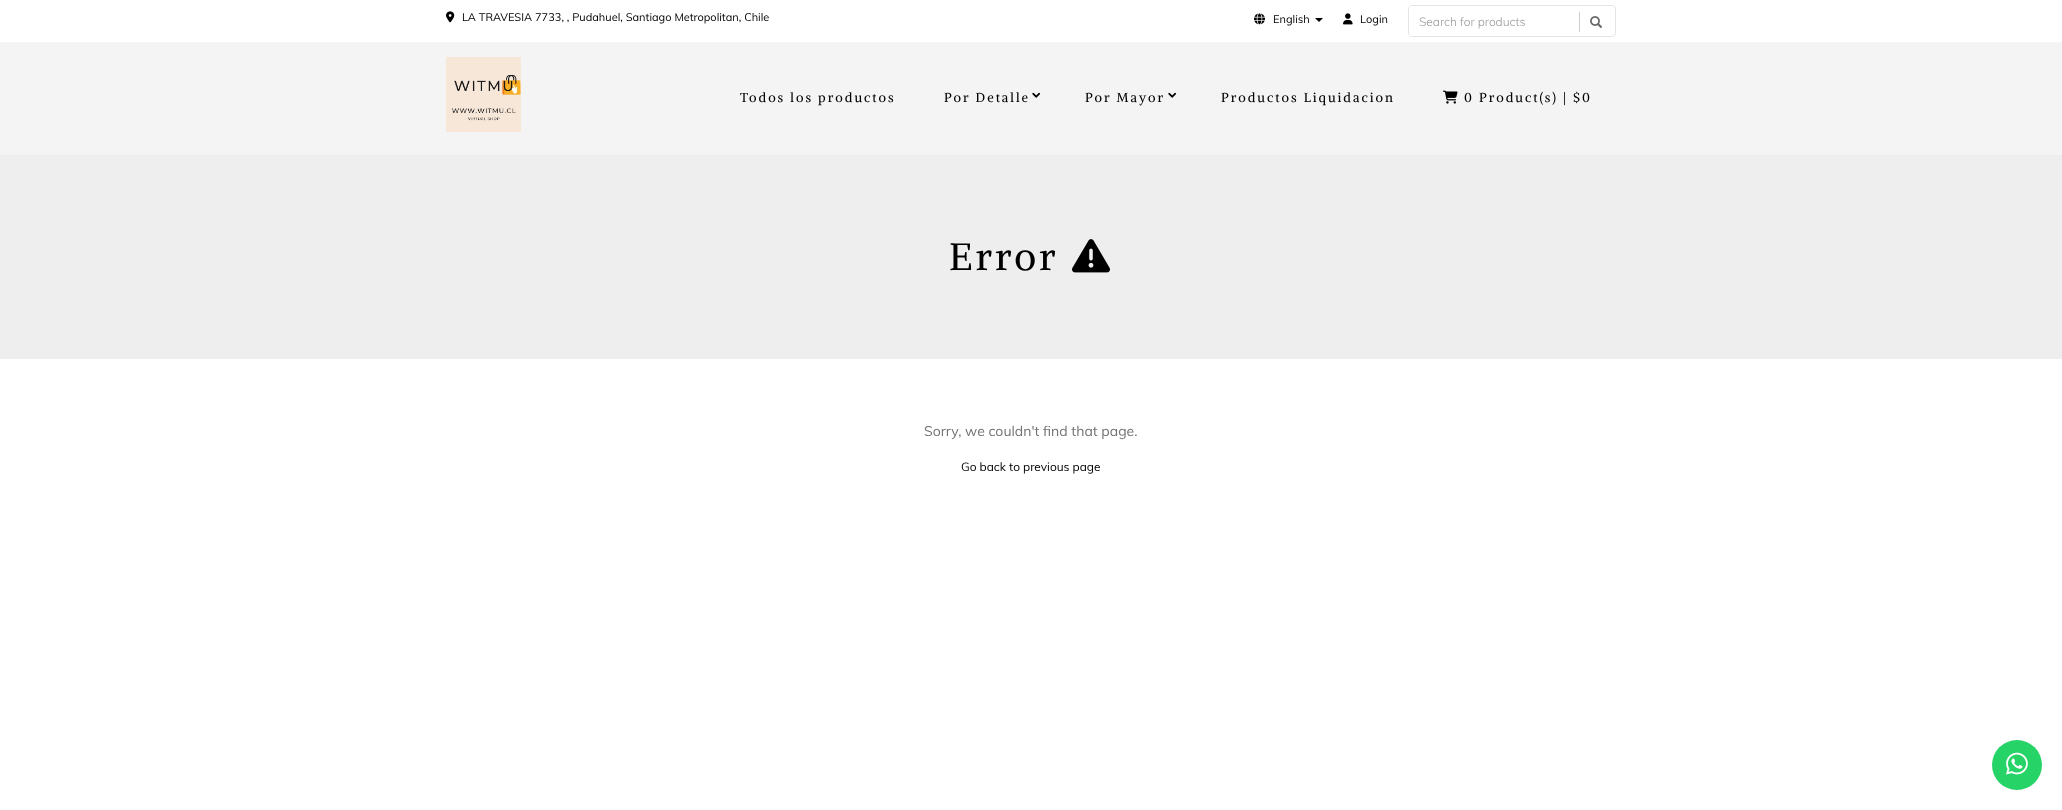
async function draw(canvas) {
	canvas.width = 2062;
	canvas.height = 810;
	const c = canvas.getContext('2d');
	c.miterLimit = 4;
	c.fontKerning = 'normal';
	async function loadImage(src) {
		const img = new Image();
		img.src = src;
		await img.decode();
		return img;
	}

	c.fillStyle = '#fff';
	c.fillRect(0, 0, 2062, 810);
	c.drawImage(await loadImage('img1.png'), 446, 11, 9, 12);
	c.font = '11px Muli';
	c.fillStyle = '#000';
	c.fillText('LA TRAVESIA 7733, , Pudahuel, Santiago Metropolitan, Chile', 462, 21);
	c.drawImage(await loadImage('img2.png'), 1254, 13, 11, 12);
	c.fillText('English', 1273, 23);
	c.beginPath();
	c.moveTo(1315, 18);
	c.lineTo(1323, 18);
	c.lineTo(1319, 22);
	c.closePath();
	c.fill();
	c.drawImage(await loadImage('img3.png'), 1343, 13, 10, 12);
	c.fillText('Login', 1360, 23);
	c.beginPath();
	c.roundRect(1408.5, 5.5, 207, 31, 3.5);
	c.strokeStyle = '#e4e4e4';
	c.stroke();
	c.fillStyle = '#fff';
	c.beginPath();
	c.roundRect(1409, 6, 171, 30, [3, 0, 0, 3]);
	c.fill();
	c.font = '300 12px Muli';
	c.fillStyle = '#999';
	c.fillText('Search for products', 1419, 26);
	c.fillStyle = '#ccc';
	c.fillRect(1579, 12, 1, 20);
	c.drawImage(await loadImage('img4.png'), 1590, 16, 12, 12);
	c.fillStyle = '#f4f4f4';
	c.fillRect(0, 42, 2062, 113);
	c.drawImage(await loadImage('img5.png'), 446, 57, 75, 75);
	c.letterSpacing = '2px';
	c.font = '13px Alike';
	c.fillStyle = '#000';
	c.fillText('Todos los productos', 740, 102);
	c.fillText('Por Detalle', 944, 102);
	c.drawImage(await loadImage('img6.png'), 1032, 92, 9, 6);
	c.fillText('Por Mayor', 1085, 102);
	c.drawImage(await loadImage('img6.png'), 1168, 92, 9, 6);
	c.fillText('Productos Liquidacion', 1221, 102);
	c.drawImage(await loadImage('img7.png'), 1443, 90, 15, 14);
	c.fillText('0 Product(s) | $0', 1464, 102);
	c.fillStyle = '#eee';
	c.fillRect(0, 155, 2062, 204);
	c.letterSpacing = '3px';
	c.font = '38px Alike';
	c.fillStyle = '#000';
	c.fillText('Error', 949, 270);
	c.drawImage(await loadImage('img8.png'), 1072, 239, 38, 34);
	c.letterSpacing = '0px';
	c.font = '14px Muli';
	c.fillStyle = '#727272';
	c.fillText('Sorry, we couldn\'t find that page.', 924, 436);
	c.font = '11.9px Muli';
	c.fillStyle = '#000';
	c.fillText('Go back to previous page', 961, 471);
	c.fillStyle = '#25d366';
	c.beginPath();
	c.arc(2017, 765, 25, 0, 2 * Math.PI);
	c.fill();
	c.drawImage(await loadImage('img9.png'), 2006, 752, 22, 23);
}

draw(document.querySelector('canvas'));
